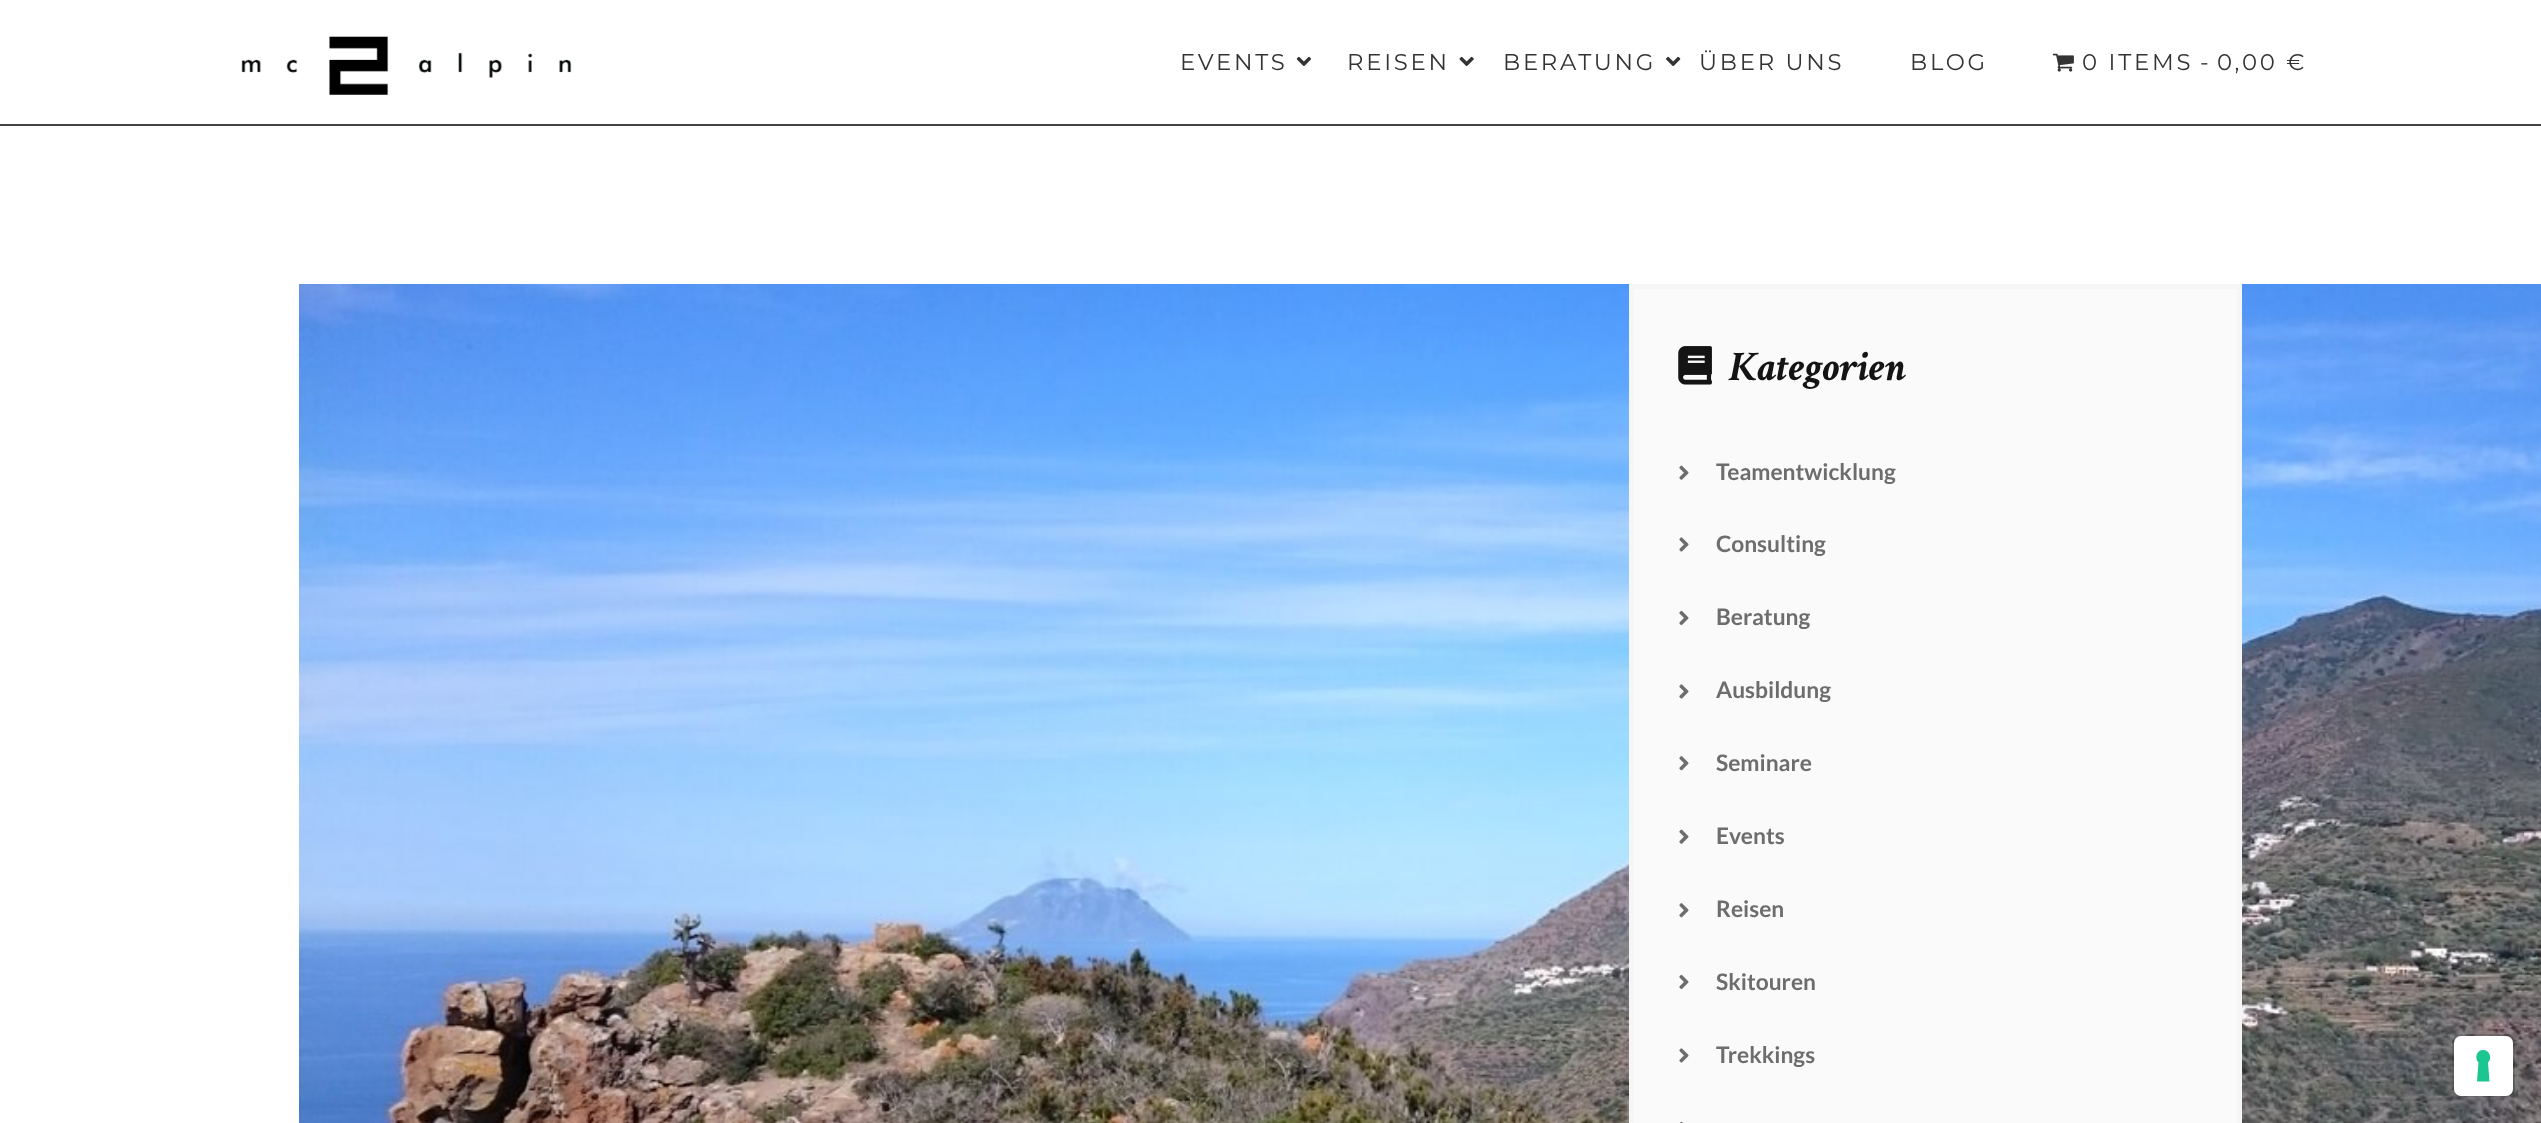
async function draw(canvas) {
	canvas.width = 2541;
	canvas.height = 1123;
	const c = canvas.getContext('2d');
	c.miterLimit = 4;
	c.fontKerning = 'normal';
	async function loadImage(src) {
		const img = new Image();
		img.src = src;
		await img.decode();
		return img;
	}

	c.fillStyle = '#fff';
	c.fillRect(0, 0, 2541, 1123);
	c.drawImage(await loadImage('img1.png'), 241, 36, 331, 59);
	c.letterSpacing = '2.75px';
	c.font = '100 22.75px Montserrat';
	c.fillStyle = '#333';
	c.fillText('EVENTS', 1180, 70);
	c.drawImage(await loadImage('img2.png'), 1296, 56, 15, 10);
	c.fillText('REISEN', 1347, 70);
	c.drawImage(await loadImage('img3.png'), 1459, 56, 15, 10);
	c.fillText('BERATUNG', 1503, 70);
	c.drawImage(await loadImage('img4.png'), 1666, 56, 15, 10);
	c.fillText('ÜBER UNS', 1699, 70);
	c.fillText('BLOG', 1910, 70);
	c.drawImage(await loadImage('img5.png'), 2052, 53, 22, 19);
	for (const [text, x, y] of [
		['0 ITEMS', 2082, 70],
		['-', 2200, 70],
		['0,00 €', 2217, 70],
	]) {
		c.fillText(text, x, y);
	}
	c.fillStyle = '#424242';
	c.fillRect(0, 124, 2541, 2);
	c.drawImage(await loadImage('img6.png'), 299, 284, 2242, 839);
	c.fillStyle = '#fafafa';
	c.beginPath();
	c.rect(1631.5, 286.5, 608, 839);
	c.fill();
	c.strokeStyle = '#f6f6f6';
	c.lineWidth = 5;
	c.stroke();
	c.drawImage(await loadImage('img7.png'), 1678, 346, 34, 39);
	c.letterSpacing = '0px';
	c.font = 'italic bold 42px Crimson Text';
	c.fillStyle = '#141414';
	c.fillText('Kategorien', 1729, 380);
	c.drawImage(await loadImage('img8.png'), 1679, 465, 10, 15);
	c.font = 'bold 22.75px Lato';
	c.fillStyle = '#6d6d6d';
	c.fillText('Teamentwicklung', 1716, 480);
	c.drawImage(await loadImage('img9.png'), 1679, 537, 10, 15);
	c.fillText('Consulting', 1716, 552);
	c.drawImage(await loadImage('img10.png'), 1679, 610, 10, 16);
	c.fillText('Beratung', 1716, 625);
	c.drawImage(await loadImage('img9.png'), 1679, 684, 10, 15);
	c.fillText('Ausbildung', 1716, 698);
	c.drawImage(await loadImage('img11.png'), 1679, 756, 10, 15);
	c.fillText('Seminare', 1716, 771);
	c.drawImage(await loadImage('img8.png'), 1679, 829, 10, 15);
	c.fillText('Events', 1716, 844);
	c.drawImage(await loadImage('img11.png'), 1679, 903, 10, 15);
	c.fillText('Reisen', 1716, 917);
	c.drawImage(await loadImage('img10.png'), 1679, 974, 10, 16);
	c.fillText('Skitouren', 1716, 990);
	c.drawImage(await loadImage('img9.png'), 1679, 1048, 10, 15);
	c.fillText('Trekkings', 1716, 1063);
	c.drawImage(await loadImage('img12.png'), 1680, 1121, 3, 2);
	c.beginPath();
	c.roundRect(2453, 1035, 61, 61, 8);
	c.strokeStyle = '#00000026';
	c.lineWidth = 2;
	c.stroke();
	c.fillStyle = '#fff';
	c.beginPath();
	c.roundRect(2454, 1036, 59, 60, 7);
	c.fill();
	c.fillStyle = '#1cc691';
	c.beginPath();
	c.moveTo(2483, 1050);
	c.bezierCurveTo(2489.5, 1050, 2492.5, 1058, 2488, 1062.5);
	c.lineTo(2489.5, 1081.5);
	c.lineTo(2477, 1081.5);
	c.lineTo(2478.5, 1062.5);
	c.bezierCurveTo(2474, 1058, 2477, 1050, 2483, 1050);
	c.closePath();
	c.fill('evenodd');
}

draw(document.querySelector('canvas'));
